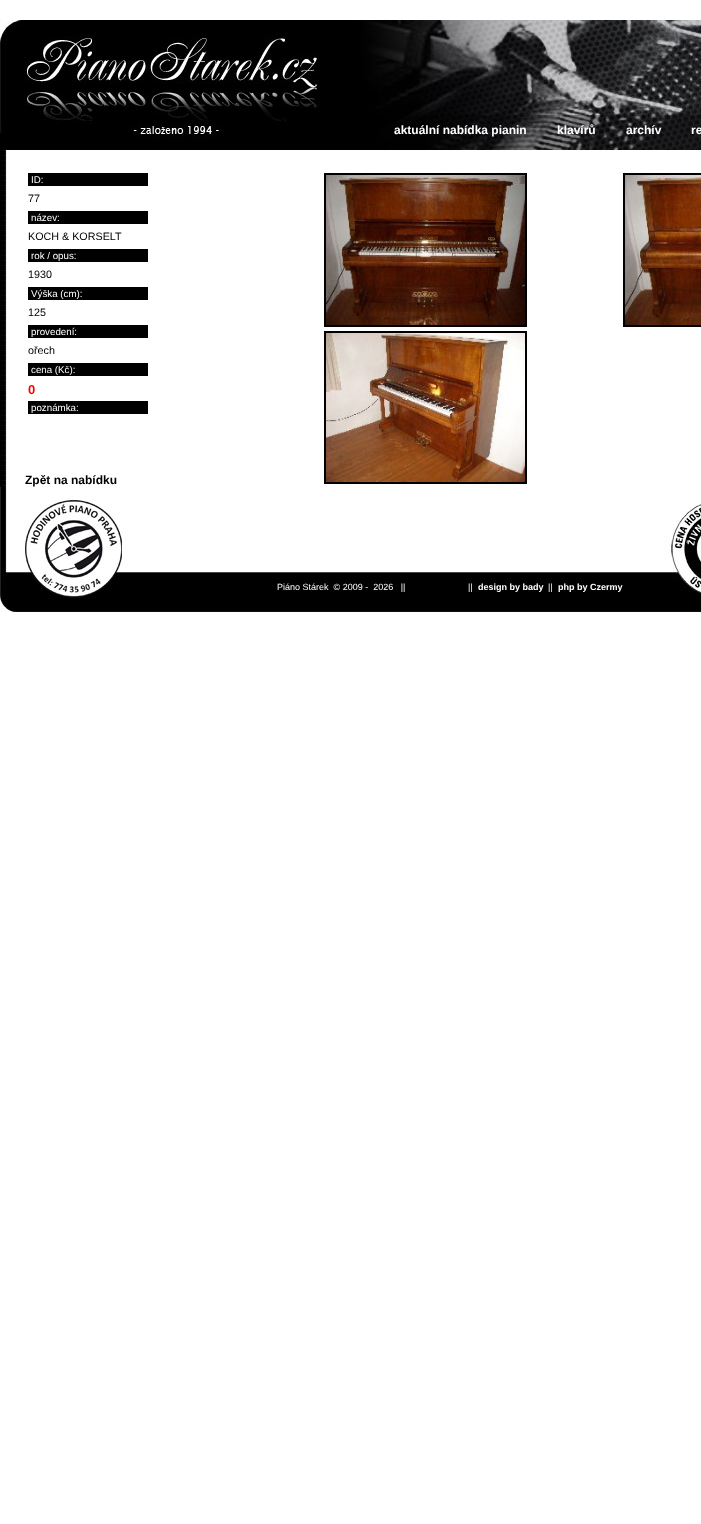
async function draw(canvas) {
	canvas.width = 701;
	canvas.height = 1524;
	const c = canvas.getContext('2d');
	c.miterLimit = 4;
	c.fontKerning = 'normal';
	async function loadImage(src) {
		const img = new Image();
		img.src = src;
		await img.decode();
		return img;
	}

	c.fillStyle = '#fff';
	c.fillRect(0, 0, 701, 1524);
	c.drawImage(await loadImage('img1.png'), 0, 20, 701, 130);
	c.font = 'bold 12px Liberation Sans';
	for (const [text, x, y] of [
		['aktuální nabídka pianin', 394, 134],
		['klavírů', 557, 134],
		['archív', 626, 134],
		['re', 691, 134],
	]) {
		c.fillText(text, x, y);
	}
	c.drawImage(await loadImage('img2.png'), 0, 150, 7, 337);
	c.fillStyle = '#000';
	c.fillRect(28, 173, 120, 13);
	c.font = '9.75px Liberation Sans';
	c.fillStyle = '#fff';
	c.fillText('ID:', 31, 183);
	c.font = '10.75px Liberation Sans';
	c.fillStyle = '#000';
	c.fillText('77', 28, 202);
	c.fillRect(28, 211, 120, 13);
	c.font = '9.75px Liberation Sans';
	c.fillStyle = '#fff';
	c.fillText('název:', 31, 221);
	c.font = '10.75px Liberation Sans';
	c.fillStyle = '#000';
	c.fillText('KOCH & KORSELT', 28, 240);
	c.fillRect(28, 249, 120, 13);
	c.font = '9.75px Liberation Sans';
	c.fillStyle = '#fff';
	c.fillText('rok / opus:', 31, 259);
	c.font = '10.75px Liberation Sans';
	c.fillStyle = '#000';
	c.fillText('1930', 28, 278);
	c.fillRect(28, 287, 120, 13);
	c.font = '9.75px Liberation Sans';
	c.fillStyle = '#fff';
	c.fillText('Výška (cm):', 31, 297);
	c.font = '10.75px Liberation Sans';
	c.fillStyle = '#000';
	c.fillText('125', 28, 316);
	c.fillRect(28, 325, 120, 13);
	c.font = '9.75px Liberation Sans';
	c.fillStyle = '#fff';
	c.fillText('provedení:', 31, 335);
	c.font = '10.75px Liberation Sans';
	c.fillStyle = '#000';
	c.fillText('ořech', 28, 354);
	c.fillRect(28, 363, 120, 13);
	c.font = '9.75px Liberation Sans';
	c.fillStyle = '#fff';
	c.fillText('cena (Kč):', 31, 373);
	c.font = 'bold 13px Liberation Sans';
	c.fillStyle = '#f00';
	c.fillText('0', 28, 394);
	c.fillStyle = '#000';
	c.fillRect(28, 401, 120, 13);
	c.font = '9.75px Liberation Sans';
	c.fillStyle = '#fff';
	c.fillText('poznámka:', 31, 411);
	c.font = 'bold 12px Liberation Sans';
	c.fillStyle = '#000';
	c.fillText('Zpět na nabídku', 25, 484);
	c.strokeStyle = '#000';
	c.lineWidth = 2;
	c.strokeRect(325, 174, 201, 152);
	c.drawImage(await loadImage('img3.png'), 326, 175, 199, 150);
	c.strokeRect(624, 174, 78, 152);
	c.drawImage(await loadImage('img4.png'), 625, 175, 76, 150);
	c.strokeRect(325, 332, 201, 151);
	c.drawImage(await loadImage('img5.png'), 326, 333, 199, 149);
	c.drawImage(await loadImage('img6.png'), 0, 487, 701, 125);
	c.font = '9px Liberation Sans';
	c.fillStyle = '#fff';
	c.fillText('Piáno Stárek  © 2009 -  2026   ||', 277, 590);
	c.fillText('||', 468, 590);
	c.font = 'bold 9px Liberation Sans';
	c.fillText('design by bady', 478, 590);
	c.font = '9px Liberation Sans';
	c.fillText('||', 548, 590);
	c.font = 'bold 9px Liberation Sans';
	c.fillText('php by Czermy', 558, 590);
}

draw(document.querySelector('canvas'));
